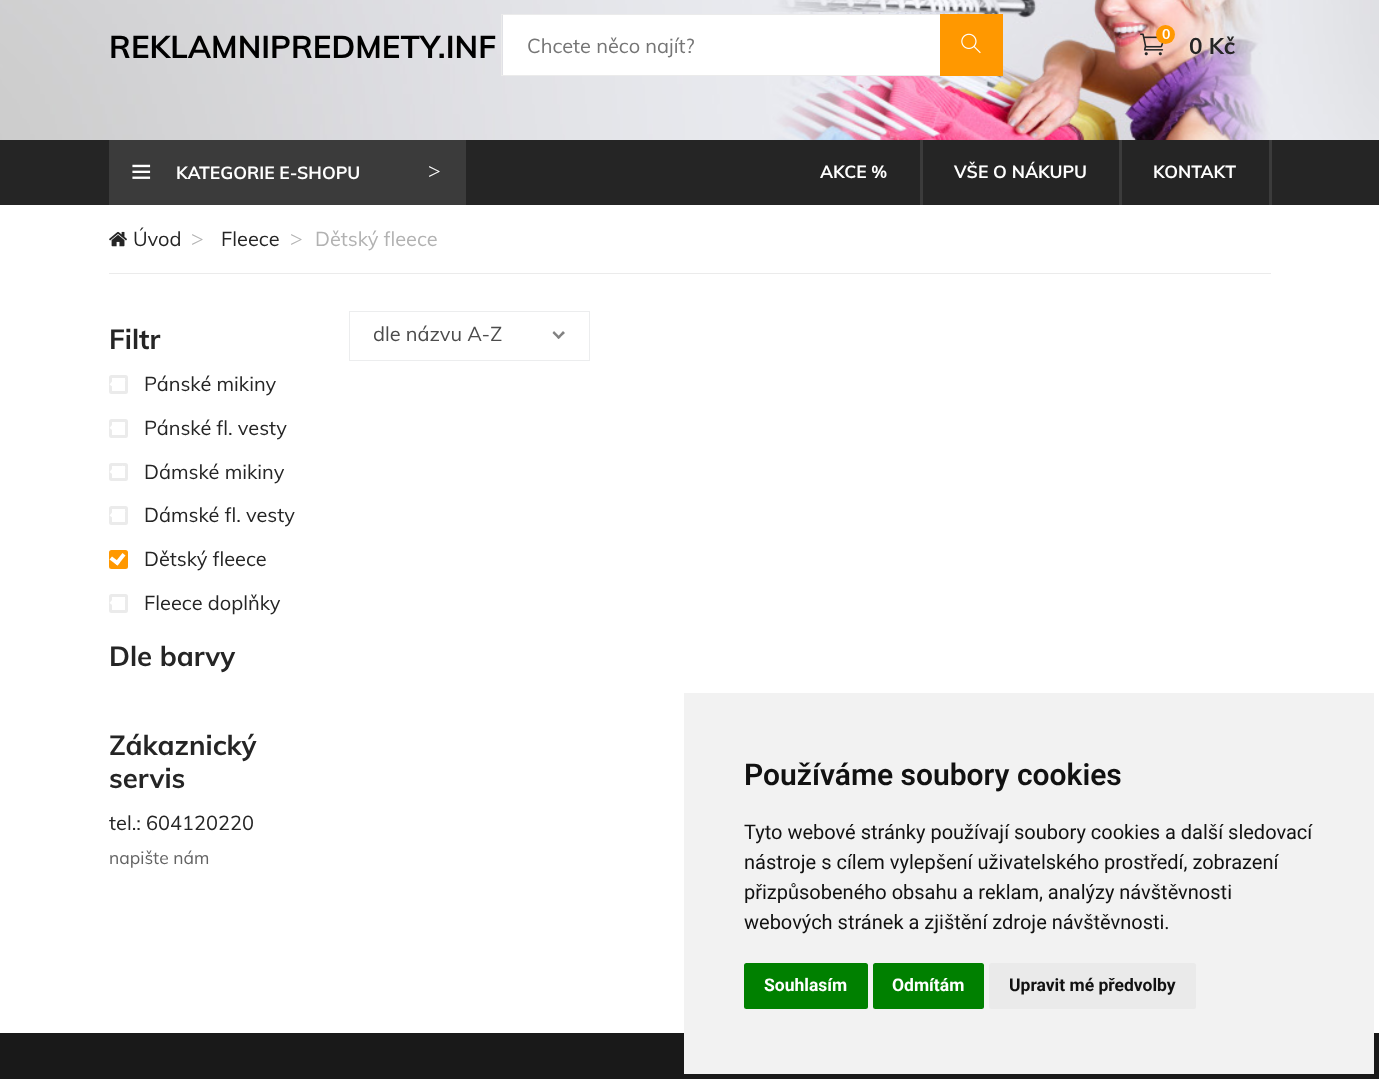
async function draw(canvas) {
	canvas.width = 1379;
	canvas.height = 1079;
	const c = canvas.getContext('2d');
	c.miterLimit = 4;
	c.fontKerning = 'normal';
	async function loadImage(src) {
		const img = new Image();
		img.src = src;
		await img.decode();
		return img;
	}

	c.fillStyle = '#fff';
	c.fillRect(0, 0, 1379, 1079);
	c.drawImage(await loadImage('img1.png'), 0, 0, 1379, 140);
	c.font = 'bold 31.25px Muli';
	c.fillStyle = '#000';
	c.fillText('REKLAMNIPREDMETY.INF', 109, 58);
	c.strokeStyle = '#ebebeb';
	c.strokeRect(501.5, 14.5, 493, 61);
	c.fillStyle = '#fff';
	c.fillRect(503, 15, 437, 60);
	c.font = '20px Muli';
	c.fillStyle = '#757575';
	c.fillText('Chcete něco najít?', 527, 53);
	c.fillStyle = '#ff9800';
	c.fillRect(940, 14, 63, 62);
	c.drawImage(await loadImage('img2.png'), 961, 33, 20, 21);
	c.drawImage(await loadImage('img3.png'), 1140, 33, 24, 23);
	c.beginPath();
	c.arc(1165.5, 34.5, 9.5, 0, 2 * Math.PI);
	c.fill();
	c.font = 'bold 14px Muli';
	c.fillStyle = '#fff';
	c.fillText('0', 1162, 39);
	c.font = 'bold 22.5px Muli';
	c.fillStyle = '#252525';
	c.fillText('0 Kč', 1189, 54);
	c.fillRect(0, 140, 1379, 65);
	c.fillStyle = '#3b3b3b';
	c.fillRect(109, 140, 357, 65);
	c.drawImage(await loadImage('img4.png'), 132, 164, 19, 15);
	c.font = 'bold 17.5px Muli';
	c.fillStyle = '#fff';
	c.fillText('KATEGORIE E-SHOPU', 176, 179);
	c.font = '22.5px Liberation Serif';
	c.fillText('>', 428, 179);
	c.fillStyle = '#3b3b3b';
	c.fillRect(920, 140, 3, 65);
	c.font = 'bold 17.5px Muli';
	c.fillStyle = '#fff';
	c.fillText('AKCE %', 820, 178);
	c.fillStyle = '#3b3b3b';
	c.fillRect(1119, 140, 3, 65);
	c.fillStyle = '#fff';
	c.fillText('VŠE O NÁKUPU', 954, 178);
	c.fillStyle = '#3b3b3b';
	c.fillRect(1269, 140, 3, 65);
	c.fillStyle = '#fff';
	c.fillText('KONTAKT', 1153, 178);
	c.fillStyle = '#ebebeb';
	c.fillRect(109, 273, 1162, 1);
	c.drawImage(await loadImage('img5.png'), 109, 231, 18, 16);
	c.font = '20px Muli';
	c.fillStyle = '#252525';
	c.fillText('Úvod', 133, 246);
	c.font = '22.5px Liberation Serif';
	c.fillStyle = '#b2b2b2';
	c.fillText('>', 191, 247);
	c.font = '20px Muli';
	c.fillStyle = '#252525';
	c.fillText('Fleece', 221, 246);
	c.font = '22.5px Liberation Serif';
	c.fillStyle = '#b2b2b2';
	c.fillText('>', 290, 247);
	c.font = '20px Muli';
	c.fillText('Dětský fleece', 315, 246);
	c.font = 'bold 27.5px Muli';
	c.fillStyle = '#252525';
	c.fillText('Filtr', 109, 349);
	c.beginPath();
	c.roundRect(110.5, 376.5, 16, 16, 1);
	c.lineWidth = 3;
	c.stroke();
	c.fillStyle = '#fff';
	c.beginPath();
	c.moveTo(125.5, 380.5);
	c.lineTo(117.5, 390.5);
	c.lineTo(114.5, 388);
	c.lineTo(122.5, 378);
	c.closePath();
	c.fill();
	c.beginPath();
	c.moveTo(120, 387.5);
	c.lineTo(117.5, 390.5);
	c.lineTo(109.5, 384.5);
	c.lineTo(112, 381.5);
	c.closePath();
	c.fill();
	c.font = '20px Muli';
	c.fillStyle = '#252525';
	c.fillText('Pánské mikiny', 144, 391);
	c.beginPath();
	c.roundRect(110.5, 420.5, 16, 16, 1);
	c.stroke();
	c.fillStyle = '#fff';
	c.beginPath();
	c.moveTo(125.5, 424);
	c.lineTo(117.5, 434);
	c.lineTo(114.5, 432);
	c.lineTo(122.5, 422);
	c.closePath();
	c.fill();
	c.beginPath();
	c.moveTo(120, 431);
	c.lineTo(117.5, 434);
	c.lineTo(109.5, 428);
	c.lineTo(112, 425);
	c.closePath();
	c.fill();
	c.fillStyle = '#252525';
	c.fillText('Pánské fl. vesty', 144, 435);
	c.beginPath();
	c.roundRect(110.5, 464.5, 16, 15, 1);
	c.stroke();
	c.fillStyle = '#fff';
	c.beginPath();
	c.moveTo(125.5, 468);
	c.lineTo(117.5, 478);
	c.lineTo(114.5, 475.5);
	c.lineTo(122.5, 465.5);
	c.closePath();
	c.fill();
	c.beginPath();
	c.moveTo(120, 475);
	c.lineTo(117.5, 478);
	c.lineTo(109.5, 472);
	c.lineTo(112, 469);
	c.closePath();
	c.fill();
	c.fillStyle = '#252525';
	c.fillText('Dámské mikiny', 144, 479);
	c.beginPath();
	c.roundRect(110.5, 507.5, 16, 16, 1);
	c.stroke();
	c.fillStyle = '#fff';
	c.beginPath();
	c.moveTo(125.5, 511.5);
	c.lineTo(117.5, 521.5);
	c.lineTo(114.5, 519.5);
	c.lineTo(122.5, 509.5);
	c.closePath();
	c.fill();
	c.beginPath();
	c.moveTo(120, 518.5);
	c.lineTo(117.5, 521.5);
	c.lineTo(109.5, 515.5);
	c.lineTo(112, 512.5);
	c.closePath();
	c.fill();
	c.fillStyle = '#252525';
	c.fillText('Dámské fl. vesty', 144, 522);
	c.fillStyle = '#ff9800';
	c.beginPath();
	c.roundRect(110.5, 551.5, 16, 16, 1);
	c.fill();
	c.strokeStyle = '#ff9800';
	c.stroke();
	c.fillStyle = '#fff';
	c.beginPath();
	c.moveTo(125.5, 555.5);
	c.lineTo(117.5, 565.5);
	c.lineTo(114.5, 563);
	c.lineTo(122.5, 553);
	c.closePath();
	c.fill();
	c.beginPath();
	c.moveTo(120, 562.5);
	c.lineTo(117.5, 565.5);
	c.lineTo(109.5, 559.5);
	c.lineTo(112, 556.5);
	c.closePath();
	c.fill();
	c.fillStyle = '#252525';
	c.fillText('Dětský fleece', 144, 566);
	c.beginPath();
	c.roundRect(110.5, 595.5, 16, 16, 1);
	c.strokeStyle = '#ebebeb';
	c.stroke();
	c.fillStyle = '#fff';
	c.beginPath();
	c.moveTo(125.5, 599);
	c.lineTo(117.5, 609);
	c.lineTo(114.5, 607);
	c.lineTo(122.5, 597);
	c.closePath();
	c.fill();
	c.beginPath();
	c.moveTo(120, 606);
	c.lineTo(117.5, 609);
	c.lineTo(109.5, 603);
	c.lineTo(112, 600);
	c.closePath();
	c.fill();
	c.fillStyle = '#252525';
	c.fillText('Fleece doplňky', 144, 610);
	c.font = 'bold 27.5px Muli';
	for (const [text, x, y] of [
		['Dle barvy', 109, 666],
		['Zákaznický', 109, 755],
		['servis', 109, 788],
	]) {
		c.fillText(text, x, y);
	}
	c.font = '20px Muli';
	c.fillText('tel.: 604120220', 109, 830);
	c.font = '17.5px Muli';
	c.fillStyle = '#636363';
	c.fillText('napište nám', 109, 864);
	c.strokeStyle = '#ecedee';
	c.lineWidth = 1;
	c.strokeRect(349.5, 311.5, 240, 49);
	c.font = '20px Muli';
	c.fillStyle = '#4c4c4c';
	c.fillText('dle názvu A-Z', 373, 341);
	c.fillStyle = '#828282';
	c.beginPath();
	c.moveTo(563, 331);
	c.lineTo(565, 333);
	c.lineTo(558.5, 339);
	c.lineTo(557, 337.5);
	c.closePath();
	c.fill();
	c.beginPath();
	c.moveTo(554, 331);
	c.lineTo(560.5, 337.5);
	c.lineTo(558.5, 339);
	c.lineTo(552.5, 333);
	c.closePath();
	c.fill();
	c.fillStyle = '#191919';
	c.fillRect(0, 1033, 1379, 46);
	c.fillStyle = '#f2f2f2';
	c.fillRect(684, 693, 690, 381);
	c.font = '600 30px Roboto';
	c.fillStyle = '#111';
	c.fillText('Používáme soubory cookies', 744, 785);
	c.font = '20px Roboto';
	for (const [text, x, y] of [
		['Tyto webové stránky používají soubory cookies a další sledovací', 744, 839],
		['nástroje s cílem vylepšení uživatelského prostředí, zobrazení', 744, 869],
		['přizpůsobeného obsahu a reklam, analýzy návštěvnosti', 744, 899],
		['webových stránek a zjištění zdroje návštěvnosti.', 744, 929],
	]) {
		c.fillText(text, x, y);
	}
	c.fillStyle = '#008000';
	c.beginPath();
	c.roundRect(744, 963, 124, 46, 2.5);
	c.fill();
	c.font = 'bold 17.5px Roboto';
	c.fillStyle = '#fff';
	c.fillText('Souhlasím', 764, 991);
	c.fillStyle = '#008000';
	c.beginPath();
	c.roundRect(873, 963, 111, 46, 2.5);
	c.fill();
	c.fillStyle = '#fff';
	c.fillText('Odmítám', 892, 991);
	c.fillStyle = '#eaeaea';
	c.beginPath();
	c.roundRect(989, 963, 207, 46, 2.5);
	c.fill();
	c.fillStyle = '#111';
	c.fillText('Upravit mé předvolby', 1009, 991);
}

draw(document.querySelector('canvas'));
